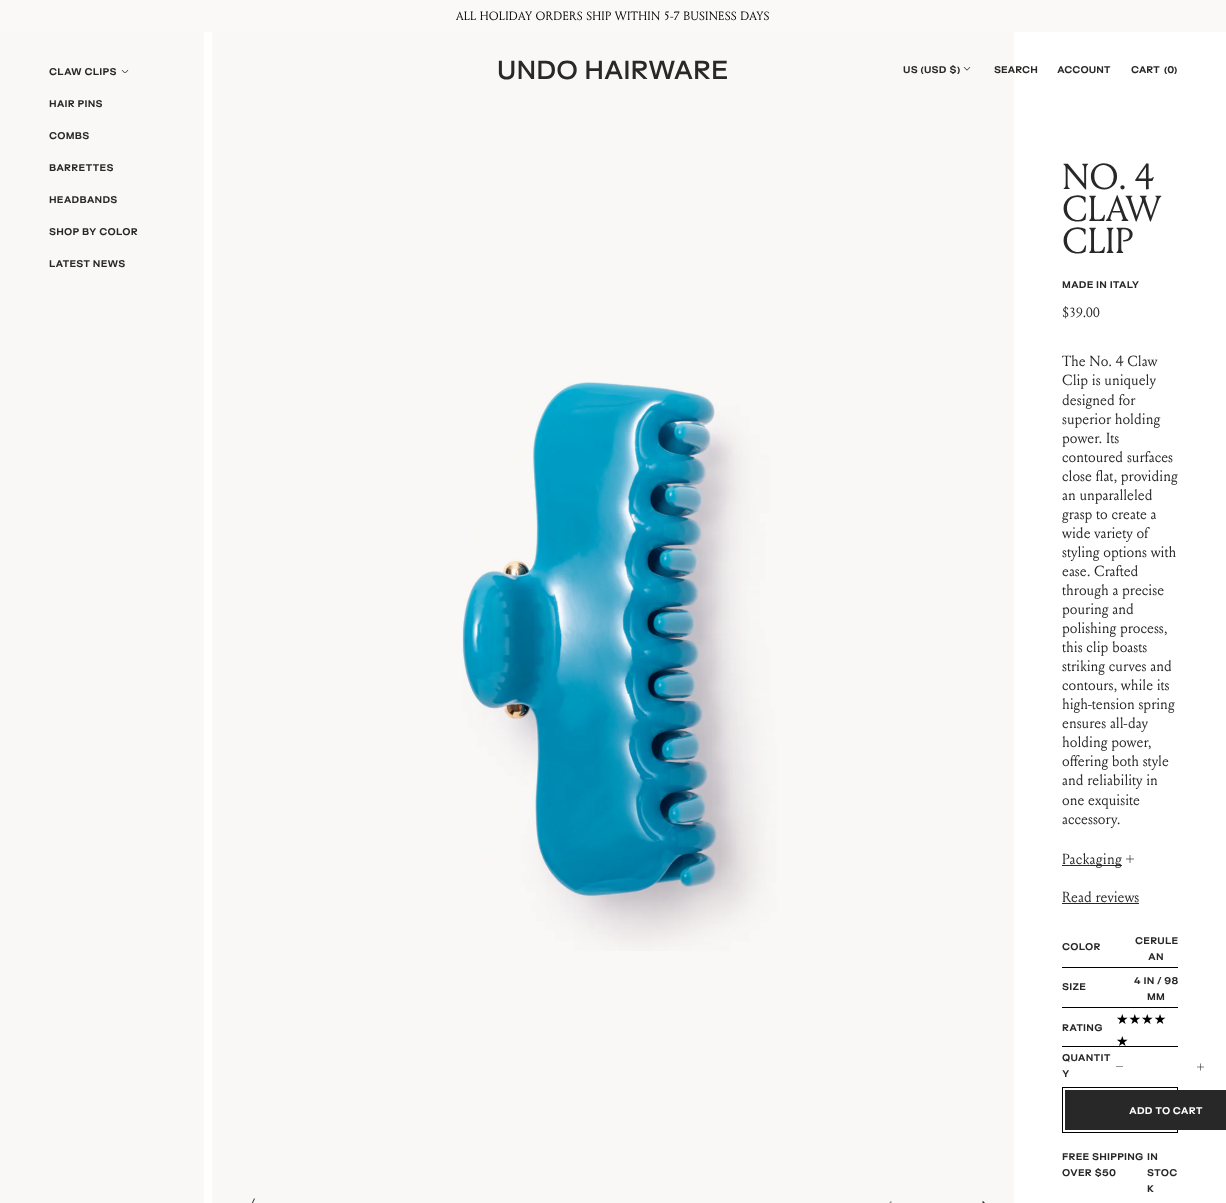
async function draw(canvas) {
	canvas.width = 1226;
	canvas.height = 1203;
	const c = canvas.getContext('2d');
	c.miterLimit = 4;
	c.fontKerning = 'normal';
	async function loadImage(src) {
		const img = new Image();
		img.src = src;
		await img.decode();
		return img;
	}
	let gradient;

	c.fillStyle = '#fff';
	c.fillRect(0, 0, 1226, 1203);
	c.fillStyle = '#fbf9f7';
	c.fillRect(0, 0, 1226, 32);
	c.letterSpacing = '0.25px';
	c.font = '12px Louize';
	c.fillStyle = '#000';
	c.fillText('ALL HOLIDAY ORDERS SHIP WITHIN 5-7 BUSINESS DAYS', 456, 20);
	c.fillStyle = '#faf8f6';
	c.fillRect(0, 32, 204, 1171);
	c.font = '800 9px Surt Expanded';
	c.fillStyle = '#282828';
	c.fillText('CLAW CLIPS', 49, 75);
	c.drawImage(await loadImage('img1.png'), 121, 70, 8, 3);
	for (const [text, x, y] of [
		['HAIR PINS', 49, 107],
		['COMBS', 49, 139],
		['BARRETTES', 49, 171],
		['HEADBANDS', 49, 203],
		['SHOP BY COLOR', 49, 235],
		['LATEST NEWS', 49, 267],
	]) {
		c.fillText(text, x, y);
	}
	c.fillStyle = '#faf8f6';
	c.fillRect(212, 32, 802, 1171);
	c.letterSpacing = '0px';
	c.font = '600 24px Surt Expanded';
	c.fillStyle = '#282828';
	c.fillText('UNDO HAIRWARE', 497, 79);
	c.letterSpacing = '0.25px';
	c.font = '800 9px Surt Expanded';
	c.fillText('US (USD $)', 903, 73);
	c.drawImage(await loadImage('img2.png'), 963, 67, 8, 4);
	c.letterSpacing = '0px';
	for (const [text, x, y] of [
		['SEARCH', 994, 73],
		['ACCOUNT', 1057, 73],
		['CART', 1131, 73],
		['(0)', 1164, 73],
	]) {
		c.fillText(text, x, y);
	}
	c.drawImage(await loadImage('img3.png'), 462, 382, 315, 569);
	c.beginPath();
	c.moveTo(255, 1198.5);
	c.lineTo(247, 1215.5);
	c.lineTo(246, 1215.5);
	c.lineTo(254, 1198.5);
	c.closePath();
	c.fill('evenodd');
	c.fillStyle = '#91908f';
	c.beginPath();
	c.moveTo(892, 1202);
	c.lineTo(891, 1201);
	c.lineTo(885, 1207);
	c.lineTo(891, 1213);
	c.lineTo(892, 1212);
	c.lineTo(887, 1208);
	c.lineTo(929, 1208);
	c.lineTo(929, 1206);
	c.lineTo(887, 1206);
	c.closePath();
	c.fill();
	c.fillStyle = '#282828';
	c.beginPath();
	c.moveTo(982, 1202);
	c.lineTo(983, 1201);
	c.lineTo(989, 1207);
	c.lineTo(983, 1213);
	c.lineTo(982, 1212);
	c.lineTo(987, 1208);
	c.lineTo(945, 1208);
	c.lineTo(945, 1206);
	c.lineTo(987, 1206);
	c.closePath();
	c.fill();
	c.letterSpacing = '-0.5px';
	c.font = '36px Louize';
	for (const [text, x, y] of [
		['NO. 4', 1062, 189],
		['CLAW', 1062, 221],
		['CLIP', 1062, 253],
	]) {
		c.fillText(text, x, y);
	}
	c.letterSpacing = '0.25px';
	c.font = '800 9px Surt Expanded';
	c.fillText('MADE IN ITALY', 1062, 288);
	c.letterSpacing = '-0.25px';
	c.font = '13.5px Louize';
	c.fillText('$39.00', 1062, 317);
	c.letterSpacing = '0px';
	c.font = '14.75px Louize';
	for (const [text, x, y] of [
		['The No. 4 Claw', 1062, 366],
		['Clip is uniquely', 1062, 385],
		['designed for', 1062, 405],
		['superior holding', 1062, 424],
		['power. Its', 1062, 443],
		['contoured surfaces', 1062, 462],
		['close flat, providing', 1062, 481],
		['an unparalleled', 1062, 500],
		['grasp to create a', 1062, 519],
		['wide variety of', 1062, 538],
		['styling options with', 1062, 557],
		['ease. Crafted', 1062, 576],
		['through a precise', 1062, 595],
		['pouring and', 1062, 614],
		['polishing process,', 1062, 633],
		['this clip boasts', 1062, 652],
		['striking curves and', 1062, 671],
		['contours, while its', 1062, 690],
		['high-tension spring', 1062, 709],
		['ensures all-day', 1062, 728],
		['holding power,', 1062, 747],
		['offering both style', 1062, 766],
		['and reliability in', 1062, 785],
		['one exquisite', 1062, 805],
		['accessory.', 1062, 824],
	]) {
		c.fillText(text, x, y);
	}
	c.fillRect(1062, 865, 60, 1);
	c.letterSpacing = '0.25px';
	c.fillText('Packaging', 1062, 864);
	c.drawImage(await loadImage('img4.png'), 1126, 855, 8, 8);
	c.letterSpacing = '0px';
	c.fillText('Read reviews', 1062, 902);
	c.fillRect(1062, 903, 77, 1);
	c.fillStyle = '#000';
	c.fillRect(1062, 967, 116, 1);
	c.letterSpacing = '0.25px';
	c.font = '800 9px Surt Expanded';
	c.fillStyle = '#282828';
	for (const [text, x, y] of [
		['COLOR', 1062, 950],
		['CERULE', 1135, 944],
		['AN', 1148, 960],
	]) {
		c.fillText(text, x, y);
	}
	c.fillStyle = '#000';
	c.fillRect(1062, 1007, 116, 1);
	c.fillStyle = '#282828';
	for (const [text, x, y] of [
		['SIZE', 1062, 990],
		['4 IN / 98', 1134, 984],
		['MM', 1147, 1000],
	]) {
		c.fillText(text, x, y);
	}
	c.fillStyle = '#000';
	c.fillRect(1062, 1046, 116, 1);
	c.fillStyle = '#282828';
	c.fillText('RATING', 1062, 1031);
	c.letterSpacing = '0px';
	c.font = '14px DejaVu Sans';
	gradient = c.createLinearGradient(1116, 1030, 1166, 1030);
	gradient.addColorStop(1, '#000');
	gradient.addColorStop(1, '#ccc');
	c.fillStyle = gradient;
	c.fillText('★★★★', 1116, 1024);
	c.fillText('★', 1116, 1046);
	c.letterSpacing = '0.25px';
	c.font = '800 9px Surt Expanded';
	c.fillStyle = '#282828';
	c.fillText('QUANTIT', 1062, 1061);
	c.fillText('Y', 1062, 1077);
	c.beginPath();
	c.moveTo(1116, 1066.5);
	c.lineTo(1123, 1066.5);
	c.lineTo(1123, 1066);
	c.lineTo(1116, 1066);
	c.closePath();
	c.fill();
	c.drawImage(await loadImage('img5.png'), 1197, 1063, 7, 8);
	c.strokeStyle = '#000';
	c.strokeRect(1062.5, 1087.5, 115, 45);
	c.fillRect(1065, 1090, 161, 40);
	c.fillStyle = '#fff';
	c.fillText('ADD TO CART', 1129, 1114);
	c.fillStyle = '#282828';
	for (const [text, x, y] of [
		['FREE SHIPPING', 1062, 1160],
		['OVER $50', 1062, 1176],
		['IN', 1147, 1160],
		['STOC', 1147, 1176],
		['K', 1147, 1192],
	]) {
		c.fillText(text, x, y);
	}
}

draw(document.querySelector('canvas'));
